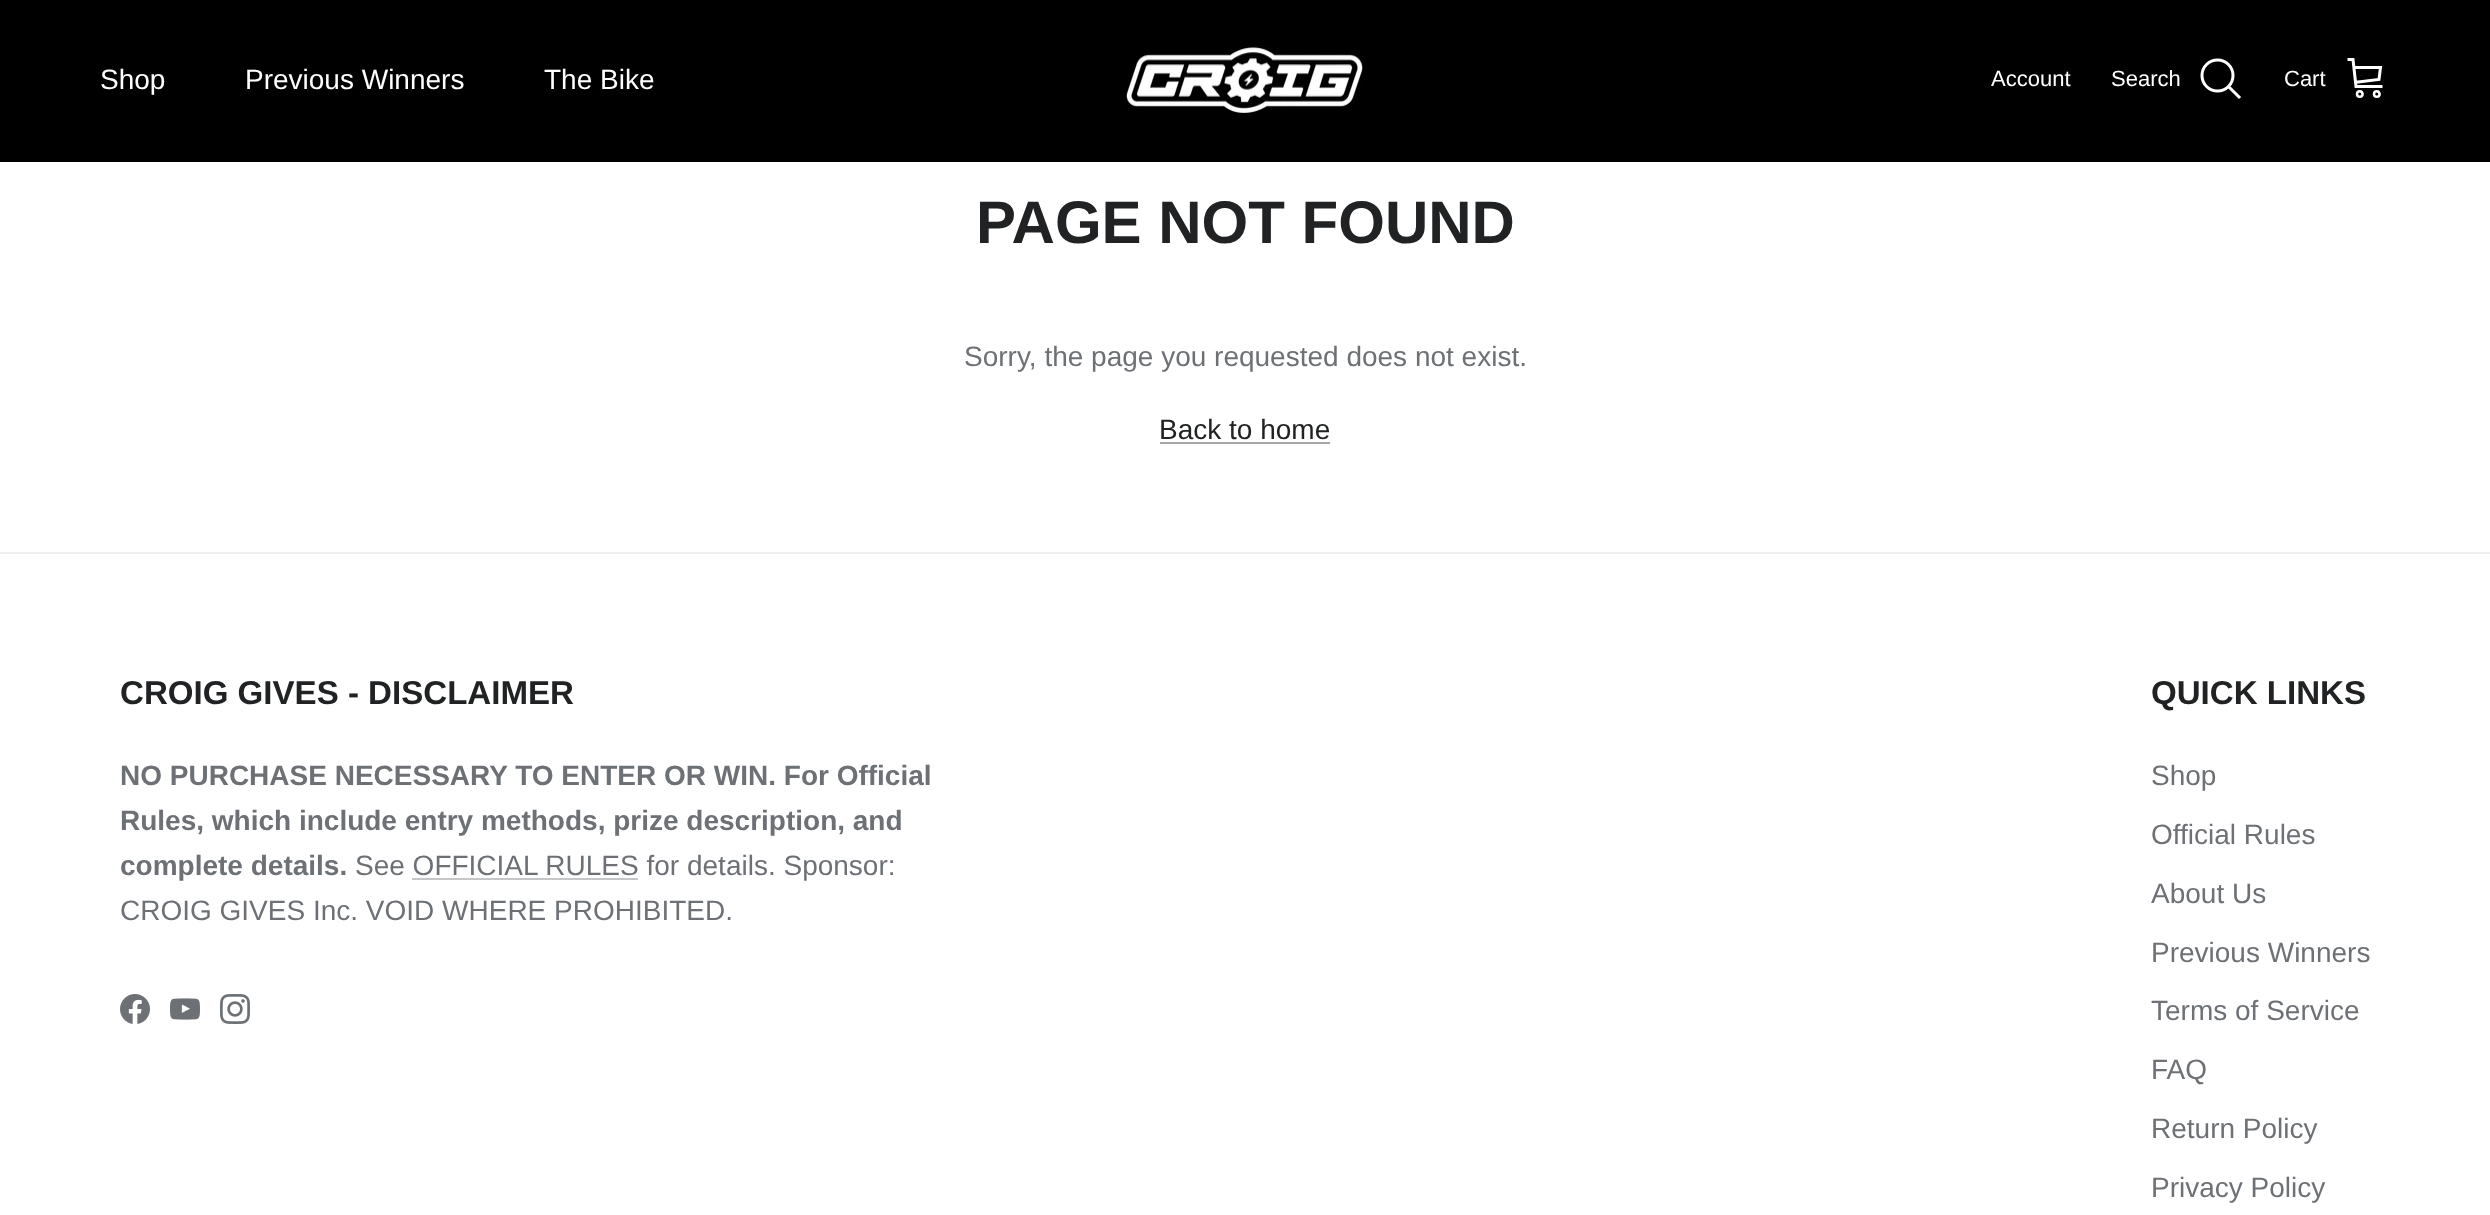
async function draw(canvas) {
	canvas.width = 2490;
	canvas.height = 1215;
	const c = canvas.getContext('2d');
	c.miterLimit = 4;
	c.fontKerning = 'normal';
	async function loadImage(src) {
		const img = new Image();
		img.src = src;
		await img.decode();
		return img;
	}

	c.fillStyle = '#fff';
	c.fillRect(0, 0, 2490, 1215);
	c.fillStyle = '#000';
	c.fillRect(0, 0, 2490, 162);
	c.font = '28px Liberation Sans';
	c.fillStyle = '#fff';
	for (const [text, x, y] of [
		['Shop', 100, 89],
		['Previous Winners', 245, 89],
		['The Bike', 544, 89],
	]) {
		c.fillText(text, x, y);
	}
	c.drawImage(await loadImage('img1.png'), 1126, 45, 237, 68);
	c.font = '22px Liberation Sans';
	c.fillText('Account', 1991, 86);
	c.fillText('Search', 2111, 86);
	c.beginPath();
	c.arc(2217.5, 75.5, 15.5, 0, 2 * Math.PI);
	c.strokeStyle = '#fff';
	c.lineWidth = 3;
	c.stroke();
	c.beginPath();
	c.moveTo(2230, 88);
	c.lineTo(2239, 97);
	c.lineCap = 'square';
	c.stroke();
	c.fillText('Cart', 2284, 86);
	c.beginPath();
	c.moveTo(2349, 59.5);
	c.lineTo(2353, 59.5);
	c.lineTo(2356, 86.5);
	c.lineTo(2381, 86.5);
	c.moveTo(2354.5, 67.5);
	c.lineTo(2380.5, 67.5);
	c.lineTo(2379, 79.5);
	c.lineTo(2357.5, 82);
	c.stroke();
	c.beginPath();
	c.arc(2359.8, 94, 2.8, 0, 2 * Math.PI);
	c.lineWidth = 2.5;
	c.stroke();
	c.beginPath();
	c.arc(2376.8, 94, 2.8, 0, 2 * Math.PI);
	c.stroke();
	c.font = 'bold 60px Liberation Sans';
	c.fillStyle = '#202223';
	c.fillText('PAGE NOT FOUND', 976, 243);
	c.font = '28px Liberation Sans';
	c.fillStyle = '#6d7175';
	c.fillText('Sorry, the page you requested does not exist.', 964, 366);
	c.fillStyle = '#202223';
	c.fillText('Back to home', 1159, 439);
	c.fillStyle = '#a6a7a7';
	c.fillRect(1160, 442, 170, 2);
	c.fillStyle = '#eee';
	c.fillRect(0, 552, 2490, 2);
	c.font = 'bold 33.1px Liberation Sans';
	c.fillStyle = '#202223';
	c.fillText('CROIG GIVES - DISCLAIMER', 120, 704);
	c.font = 'bold 28px Liberation Sans';
	c.fillStyle = '#6d7175';
	for (const [text, x, y] of [
		['NO PURCHASE NECESSARY TO ENTER OR WIN. For Official', 120, 785],
		['Rules, which include entry methods, prize description, and', 120, 830],
		['complete details.', 120, 875],
	]) {
		c.fillText(text, x, y);
	}
	c.font = '28px Liberation Sans';
	c.fillText('See OFFICIAL RULES for details. Sponsor:', 355, 875);
	c.fillStyle = '#c5c6c8';
	c.fillRect(412, 878, 226, 2);
	c.fillStyle = '#6d7175';
	c.fillText('CROIG GIVES Inc. VOID WHERE PROHIBITED.', 120, 920);
	c.drawImage(await loadImage('img2.png'), 120, 994, 30, 30);
	c.drawImage(await loadImage('img3.png'), 170, 998, 30, 22);
	c.drawImage(await loadImage('img4.png'), 220, 994, 30, 30);
	c.font = 'bold 33.1px Liberation Sans';
	c.fillStyle = '#202223';
	c.fillText('QUICK LINKS', 2151, 704);
	c.font = '28px Liberation Sans';
	c.fillStyle = '#6d7175';
	for (const [text, x, y] of [
		['Shop', 2151, 785],
		['Official Rules', 2151, 844],
		['About Us', 2151, 903],
		['Previous Winners', 2151, 962],
		['Terms of Service', 2151, 1020],
		['FAQ', 2151, 1079],
		['Return Policy', 2151, 1138],
		['Privacy Policy', 2151, 1197],
	]) {
		c.fillText(text, x, y);
	}
}

draw(document.querySelector('canvas'));
